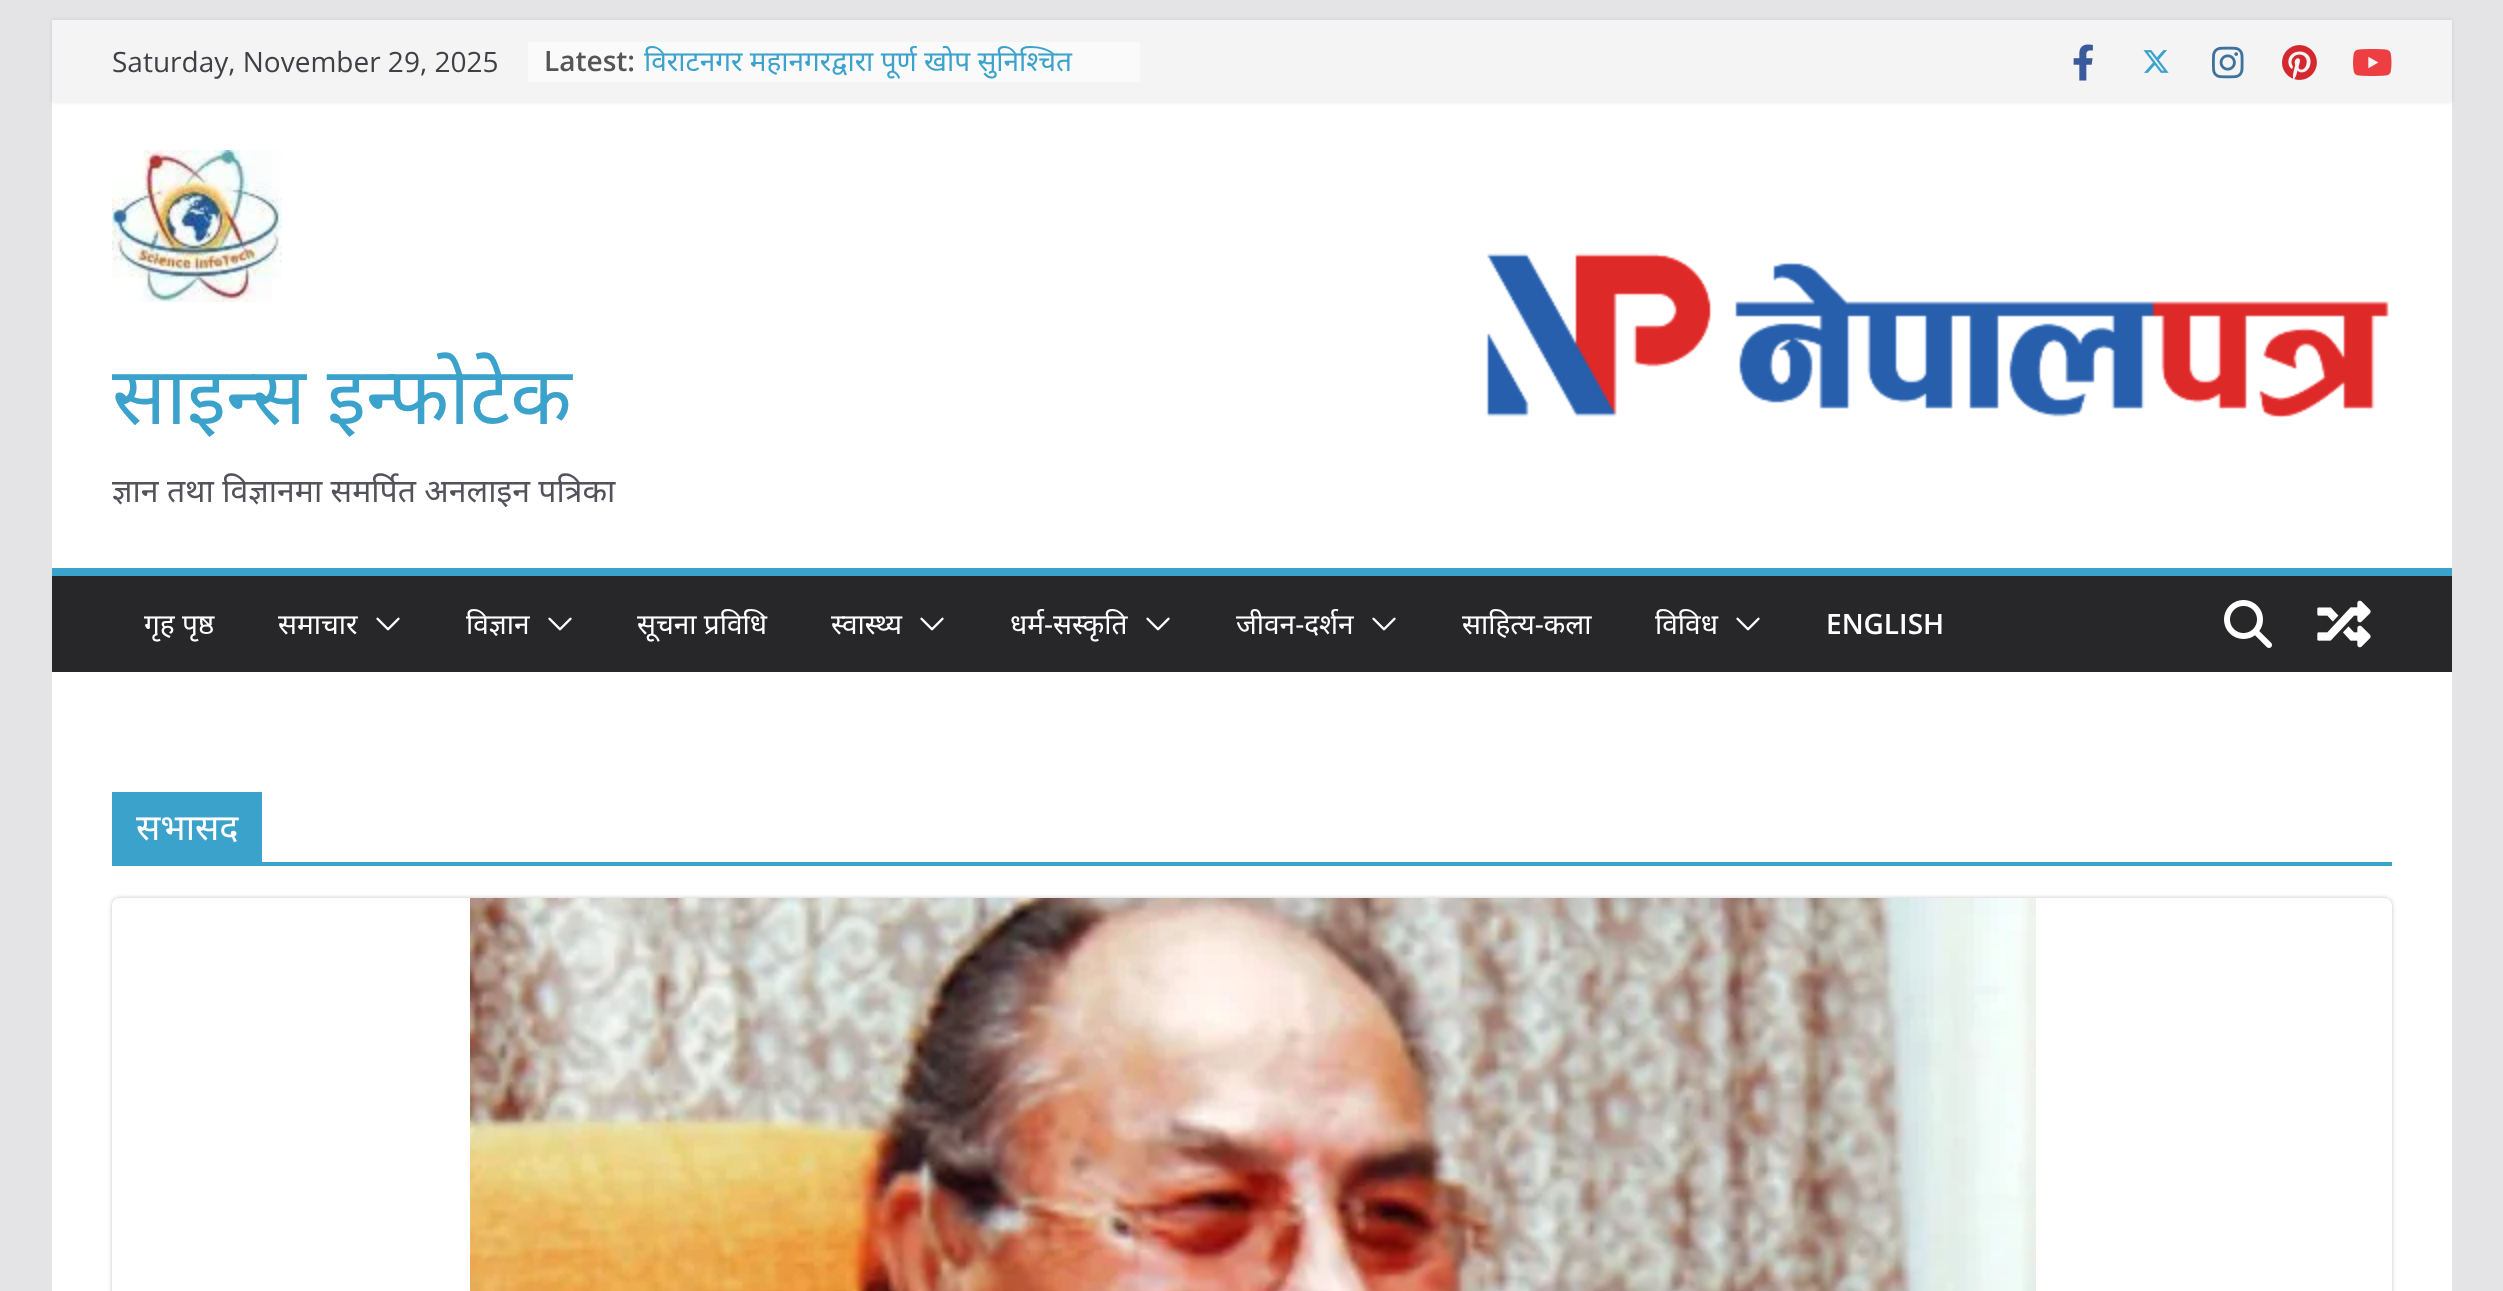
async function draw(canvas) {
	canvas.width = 2503;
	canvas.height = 1291;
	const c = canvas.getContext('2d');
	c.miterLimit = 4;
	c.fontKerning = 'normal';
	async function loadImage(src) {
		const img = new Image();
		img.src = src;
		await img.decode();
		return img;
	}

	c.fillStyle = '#e4e4e7';
	c.fillRect(0, 0, 2503, 1291);
	c.fillStyle = '#fff';
	c.fillRect(52, 102, 2400, 466);
	c.fillStyle = '#0000001a';
	c.filter = 'blur(2px)';
	c.beginPath();
	c.rect(52, 20, 2400, 82);
	c.fill();
	c.filter = 'none';
	c.fillStyle = '#f4f4f5';
	c.fillRect(52, 20, 2400, 82);
	c.font = '28px Open Sans';
	c.fillStyle = '#3f3f46';
	c.fillText('Saturday, November 29, 2025', 112, 72);
	c.fillStyle = '#fafafa';
	c.fillRect(528, 42, 612, 40);
	c.font = '600 28px Open Sans';
	c.fillStyle = '#555';
	c.fillText('Latest:', 544, 71);
	c.save();
	c.beginPath();
	c.rect(644, 42, 480, 40);
	c.clip();
	c.font = '28px Noto Sans';
	c.fillStyle = '#3ba2cc';
	c.fillText('विराटनगर महानगरद्वारा पूर्ण खोप सुनिश्चित', 644, 71);
	c.restore();
	c.drawImage(await loadImage('img1.png'), 2073, 44, 20, 37);
	c.drawImage(await loadImage('img2.png'), 2143, 50, 26, 23);
	c.drawImage(await loadImage('img3.png'), 2212, 46, 32, 33);
	c.drawImage(await loadImage('img4.png'), 2282, 45, 35, 35);
	c.drawImage(await loadImage('img5.png'), 2353, 49, 39, 27);
	c.drawImage(await loadImage('img6.png'), 112, 150, 170, 152);
	c.font = '80px Noto Sans';
	c.fillStyle = '#3ba2cc';
	c.fillText('साइन्स इन्फोटेक', 112, 424);
	c.font = '32px Noto Sans';
	c.fillStyle = '#52525b';
	c.fillText('ज्ञान तथा विज्ञानमा समर्पित अनलाइन पत्रिका', 112, 502);
	c.drawImage(await loadImage('img7.png'), 1486, 253, 903, 165);
	c.fillStyle = '#27272a';
	c.fillRect(52, 576, 2400, 96);
	c.fillStyle = '#3ba2cc';
	c.fillRect(52, 568, 2400, 8);
	c.font = '28px Noto Sans';
	c.fillStyle = '#fff';
	c.fillText('गृह पृष्ठ', 144, 634);
	c.fillText('समाचार', 278, 634);
	c.drawImage(await loadImage('img8.png'), 376, 617, 24, 14);
	c.fillText('विज्ञान', 466, 634);
	c.drawImage(await loadImage('img8.png'), 548, 617, 24, 14);
	c.fillText('सूचना प्रविधि', 637, 634);
	c.fillText('स्वास्थ्य', 831, 634);
	c.drawImage(await loadImage('img8.png'), 920, 617, 24, 14);
	c.fillText('धर्म-सस्कृति', 1010, 634);
	c.drawImage(await loadImage('img8.png'), 1146, 617, 24, 14);
	c.fillText('जीवन-दर्शन', 1236, 634);
	c.drawImage(await loadImage('img8.png'), 1372, 617, 24, 14);
	c.fillText('साहित्य-कला', 1462, 634);
	c.fillText('विविध', 1655, 634);
	c.drawImage(await loadImage('img8.png'), 1736, 617, 24, 14);
	c.font = '600 28px Open Sans';
	c.fillText('ENGLISH', 1826, 634);
	c.drawImage(await loadImage('img9.png'), 2224, 600, 48, 48);
	c.drawImage(await loadImage('img10.png'), 2317, 600, 54, 48);
	for (const [x, y, w, h, color] of [
		[52, 672, 2400, 619, '#fff'],
		[112, 862, 2280, 4, '#3ba2cc'],
		[112, 792, 150, 70, '#3ba2cc'],
	]) {
		c.fillStyle = color;
		c.fillRect(x, y, w, h);
	}
	c.font = '36px Noto Sans';
	c.fillStyle = '#fff';
	c.fillText('सभासद', 136, 840);
	c.save();
	c.beginPath();
	c.moveTo(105, 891);
	c.lineTo(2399, 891);
	c.lineTo(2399, 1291);
	c.lineTo(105, 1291);
	c.closePath();
	c.moveTo(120, 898);
	c.lineTo(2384, 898);
	c.bezierCurveTo(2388.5, 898, 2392, 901.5, 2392, 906);
	c.lineTo(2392, 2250);
	c.bezierCurveTo(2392, 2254.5, 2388.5, 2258, 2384, 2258);
	c.lineTo(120, 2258);
	c.bezierCurveTo(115.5, 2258, 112, 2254.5, 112, 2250);
	c.lineTo(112, 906);
	c.bezierCurveTo(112, 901.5, 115.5, 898, 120, 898);
	c.closePath();
	c.clip('evenodd');
	c.fillStyle = '#0000003d';
	c.filter = 'blur(2px)';
	c.beginPath();
	c.roundRect(112, 898, 2280, 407, 8);
	c.fill();
	c.filter = 'none';
	c.restore();
	c.drawImage(await loadImage('img11.png'), 470, 898, 1566, 393);
}

draw(document.querySelector('canvas'));
